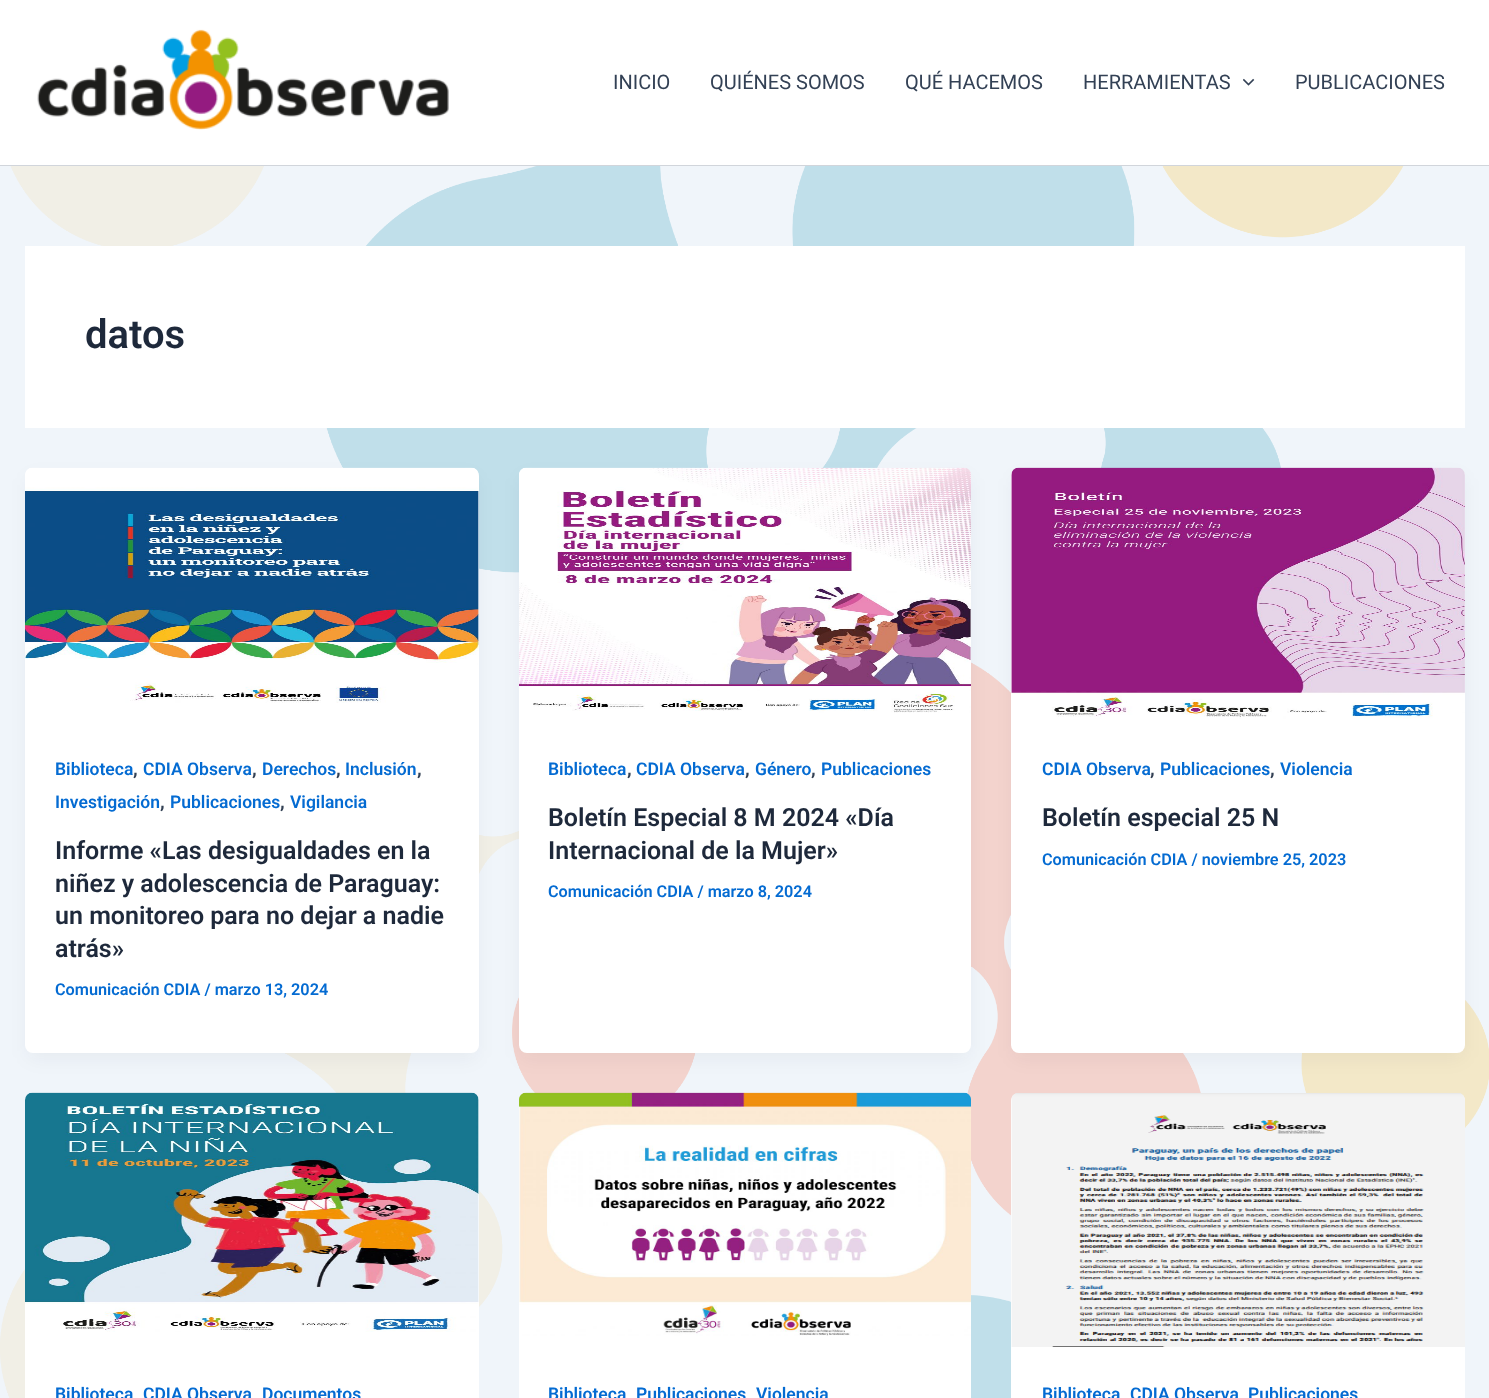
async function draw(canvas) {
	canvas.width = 1489;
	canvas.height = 1398;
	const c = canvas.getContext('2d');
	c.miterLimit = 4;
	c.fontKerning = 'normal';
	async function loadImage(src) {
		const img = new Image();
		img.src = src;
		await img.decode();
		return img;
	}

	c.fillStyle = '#f0f5fa';
	c.fillRect(0, 0, 1489, 1398);
	c.drawImage(await loadImage('img1.png'), 0, 166, 1489, 1232);
	c.fillStyle = '#fff';
	c.fillRect(0, 0, 1489, 165);
	c.fillStyle = '#d1d5db';
	c.fillRect(0, 165, 1489, 1);
	c.drawImage(await loadImage('img2.png'), 37, 29, 412, 101);
	c.font = '20px Roboto';
	c.fillStyle = '#334155';
	for (const [text, x, y] of [
		['INICIO', 613, 89],
		['QUIÉNES SOMOS', 710, 89],
		['QUÉ HACEMOS', 905, 89],
		['HERRAMIENTAS', 1083, 89],
	]) {
		c.fillText(text, x, y);
	}
	c.drawImage(await loadImage('img3.png'), 1243, 78, 12, 8);
	c.fillText('PUBLICACIONES', 1295, 89);
	c.fillStyle = '#fff';
	c.fillRect(25, 246, 1440, 182);
	c.font = '600 40px Roboto';
	c.fillStyle = '#1e293b';
	c.fillText('datos', 85, 348);
	c.fillStyle = '#1018280d';
	c.filter = 'blur(9.5px)';
	c.beginPath();
	c.roundRect(28, 478, 448, 580, 5);
	c.fill();
	c.filter = 'none';
	c.fillStyle = '#fff';
	c.beginPath();
	c.roundRect(25, 468, 454, 585, 8);
	c.fill();
	c.drawImage(await loadImage('img4.png'), 25, 467, 454, 236);
	c.font = '600 17.5px Roboto';
	c.fillStyle = '#046bd2';
	c.fillText('Biblioteca', 55, 775);
	c.font = '600 20px Roboto';
	c.fillStyle = '#334155';
	c.fillText(',', 133, 775);
	c.font = '600 17.5px Roboto';
	c.fillStyle = '#046bd2';
	c.fillText('CDIA Observa', 143, 775);
	c.font = '600 20px Roboto';
	c.fillStyle = '#334155';
	c.fillText(',', 252, 775);
	c.font = '600 17.5px Roboto';
	c.fillStyle = '#046bd2';
	c.fillText('Derechos', 262, 775);
	c.font = '600 20px Roboto';
	c.fillStyle = '#334155';
	c.fillText(',', 336, 775);
	c.font = '600 17.5px Roboto';
	c.fillStyle = '#046bd2';
	c.fillText('Inclusión', 345, 775);
	c.font = '600 20px Roboto';
	c.fillStyle = '#334155';
	c.fillText(',', 417, 775);
	c.font = '600 17.5px Roboto';
	c.fillStyle = '#046bd2';
	c.fillText('Investigación', 55, 808);
	c.font = '600 20px Roboto';
	c.fillStyle = '#334155';
	c.fillText(',', 160, 808);
	c.font = '600 17.5px Roboto';
	c.fillStyle = '#046bd2';
	c.fillText('Publicaciones', 170, 808);
	c.font = '600 20px Roboto';
	c.fillStyle = '#334155';
	c.fillText(',', 280, 808);
	c.font = '600 17.5px Roboto';
	c.fillStyle = '#046bd2';
	c.fillText('Vigilancia', 290, 808);
	c.font = '600 25px Roboto';
	c.fillStyle = '#1e293b';
	for (const [text, x, y] of [
		['Informe «Las desigualdades en la', 55, 859],
		['niñez y adolescencia de Paraguay:', 55, 892],
		['un monitoreo para no dejar a nadie', 55, 924],
		['atrás»', 55, 957],
	]) {
		c.fillText(text, x, y);
	}
	c.font = '600 16.25px Roboto';
	c.fillStyle = '#046bd2';
	c.fillText('Comunicación CDIA / marzo 13, 2024', 55, 995);
	c.fillStyle = '#1018280d';
	c.filter = 'blur(9.5px)';
	c.beginPath();
	c.roundRect(521, 478, 448, 580, 5);
	c.fill();
	c.filter = 'none';
	c.fillStyle = '#fff';
	c.beginPath();
	c.roundRect(519, 468, 452, 585, 8);
	c.fill();
	c.drawImage(await loadImage('img5.png'), 519, 467, 452, 246);
	c.font = '600 17.5px Roboto';
	c.fillStyle = '#046bd2';
	c.fillText('Biblioteca', 548, 775);
	c.font = '600 20px Roboto';
	c.fillStyle = '#334155';
	c.fillText(',', 627, 775);
	c.font = '600 17.5px Roboto';
	c.fillStyle = '#046bd2';
	c.fillText('CDIA Observa', 636, 775);
	c.font = '600 20px Roboto';
	c.fillStyle = '#334155';
	c.fillText(',', 745, 775);
	c.font = '600 17.5px Roboto';
	c.fillStyle = '#046bd2';
	c.fillText('Género', 755, 775);
	c.font = '600 20px Roboto';
	c.fillStyle = '#334155';
	c.fillText(',', 811, 775);
	c.font = '600 17.5px Roboto';
	c.fillStyle = '#046bd2';
	c.fillText('Publicaciones', 821, 775);
	c.font = '600 25px Roboto';
	c.fillStyle = '#1e293b';
	c.fillText('Boletín Especial 8 M 2024 «Día', 548, 826);
	c.fillText('Internacional de la Mujer»', 548, 859);
	c.font = '600 16.25px Roboto';
	c.fillStyle = '#046bd2';
	c.fillText('Comunicación CDIA / marzo 8, 2024', 548, 897);
	c.fillStyle = '#1018280d';
	c.filter = 'blur(9.5px)';
	c.beginPath();
	c.roundRect(1014, 478, 449, 580, 5);
	c.fill();
	c.filter = 'none';
	c.fillStyle = '#fff';
	c.beginPath();
	c.roundRect(1011, 468, 454, 585, 8);
	c.fill();
	c.drawImage(await loadImage('img6.png'), 1011, 467, 454, 252);
	c.font = '600 17.5px Roboto';
	c.fillStyle = '#046bd2';
	c.fillText('CDIA Observa', 1042, 775);
	c.font = '600 20px Roboto';
	c.fillStyle = '#334155';
	c.fillText(',', 1150, 775);
	c.font = '600 17.5px Roboto';
	c.fillStyle = '#046bd2';
	c.fillText('Publicaciones', 1160, 775);
	c.font = '600 20px Roboto';
	c.fillStyle = '#334155';
	c.fillText(',', 1270, 775);
	c.font = '600 17.5px Roboto';
	c.fillStyle = '#046bd2';
	c.fillText('Violencia', 1280, 775);
	c.font = '600 25px Roboto';
	c.fillStyle = '#1e293b';
	c.fillText('Boletín especial 25 N', 1042, 826);
	c.font = '600 16.25px Roboto';
	c.fillStyle = '#046bd2';
	c.fillText('Comunicación CDIA / noviembre 25, 2023', 1042, 865);
	c.fillStyle = '#fff';
	c.beginPath();
	c.roundRect(25, 1093, 454, 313, 8);
	c.fill();
	c.drawImage(await loadImage('img7.png'), 25, 1092, 454, 240);
	c.font = '600 17.5px Roboto';
	c.fillStyle = '#046bd2';
	for (const [text, x, y] of [
		['Biblioteca', 55, 1400],
		['CDIA Observa', 143, 1400],
		['Documentos', 262, 1400],
	]) {
		c.fillText(text, x, y);
	}
	c.fillStyle = '#fff';
	c.beginPath();
	c.roundRect(519, 1093, 452, 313, 8);
	c.fill();
	c.drawImage(await loadImage('img8.png'), 519, 1092, 452, 244);
	c.fillStyle = '#046bd2';
	for (const [text, x, y] of [
		['Biblioteca', 548, 1400],
		['Publicaciones', 636, 1400],
		['Violencia', 756, 1400],
	]) {
		c.fillText(text, x, y);
	}
	c.fillStyle = '#fff';
	c.beginPath();
	c.roundRect(1011, 1093, 454, 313, 8);
	c.fill();
	c.drawImage(await loadImage('img9.png'), 1011, 1093, 454, 254);
	c.fillStyle = '#046bd2';
	for (const [text, x, y] of [
		['Biblioteca', 1042, 1400],
		['CDIA Observa', 1130, 1400],
		['Publicaciones', 1248, 1400],
	]) {
		c.fillText(text, x, y);
	}
}

draw(document.querySelector('canvas'));
